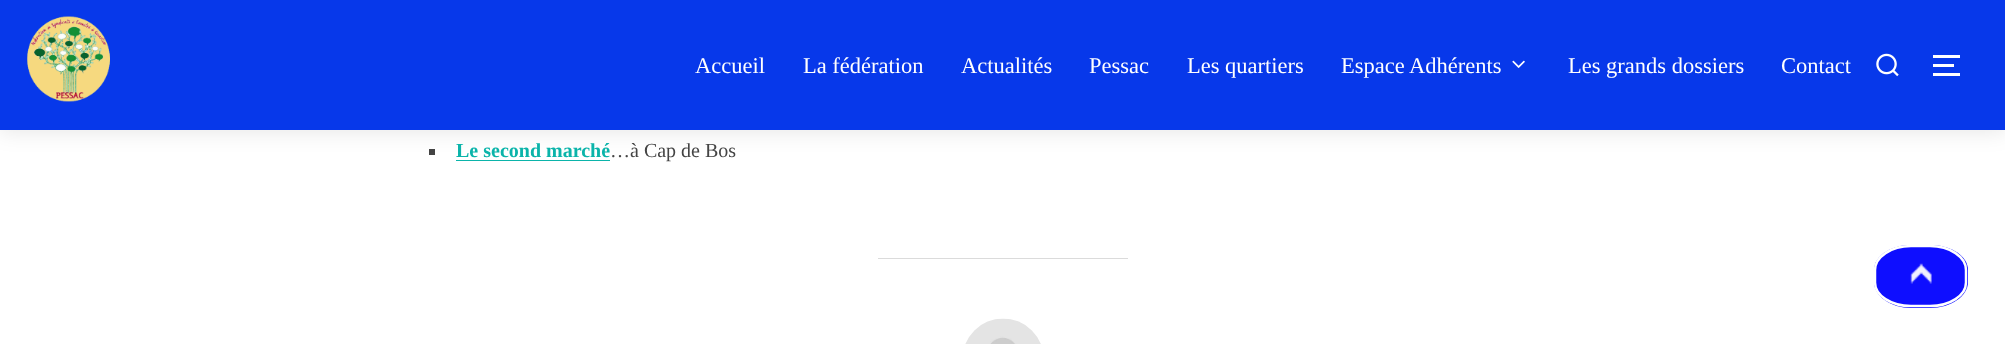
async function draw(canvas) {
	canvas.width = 2005;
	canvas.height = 344;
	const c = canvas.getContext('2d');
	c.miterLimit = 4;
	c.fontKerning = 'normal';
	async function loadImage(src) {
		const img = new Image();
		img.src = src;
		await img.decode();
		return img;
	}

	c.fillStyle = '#fff';
	c.fillRect(0, 0, 2005, 344);
	c.fillStyle = '#444';
	c.fillRect(429, 149, 6, 6);
	c.fillStyle = '#0bb4aa';
	c.fillRect(456, 160, 154, 1);
	c.fillStyle = '#0000001a';
	c.filter = 'blur(11px)';
	c.beginPath();
	c.rect(-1, -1, 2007, 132);
	c.fill();
	c.filter = 'none';
	c.fillStyle = '#0738ea';
	c.fillRect(0, 0, 2005, 130);
	c.drawImage(await loadImage('img1.png'), 27, 16, 83, 86);
	c.font = '22.5px Liberation Serif';
	c.fillStyle = '#fff';
	for (const [text, x, y] of [
		['Accueil', 695, 73],
		['La fédération', 803, 73],
		['Actualités', 961, 73],
		['Pessac', 1089, 73],
		['Les quartiers', 1187, 73],
		['Espace Adhérents', 1341, 73],
	]) {
		c.fillText(text, x, y);
	}
	c.drawImage(await loadImage('img2.png'), 1512, 60, 13, 8);
	c.fillText('Les grands dossiers', 1568, 73);
	c.fillText('Contact', 1781, 73);
	c.drawImage(await loadImage('img3.png'), 1876, 53, 23, 24);
	for (const [x, y, w, h, color] of [
		[1933, 55, 27, 3, '#fff'],
		[1933, 64, 21, 3, '#fff'],
		[1933, 73, 27, 3, '#fff'],
	]) {
		c.fillStyle = color;
		c.fillRect(x, y, w, h);
	}
	c.font = 'bold 20px Liberation Serif';
	c.fillStyle = '#0bb4aa';
	c.fillText('Le second marché', 456, 157);
	c.font = '20px Liberation Serif';
	c.fillStyle = '#444';
	c.fillText('…à Cap de Bos', 610, 157);
	c.fillStyle = '#dbdbdb';
	c.fillRect(878, 258, 250, 1);
	c.drawImage(await loadImage('img4.png'), 965, 318, 76, 26);
	c.fillStyle = '#0e0eff';
	c.beginPath();
	c.moveTo(1911, 245);
	c.lineTo(1930, 245);
	c.bezierCurveTo(1951, 245, 1968, 256, 1968, 270);
	c.lineTo(1968, 282);
	c.bezierCurveTo(1968, 296, 1951, 308, 1930, 308);
	c.lineTo(1911, 308);
	c.bezierCurveTo(1891, 308, 1874, 296, 1874, 282);
	c.lineTo(1874, 270);
	c.bezierCurveTo(1874, 256, 1891, 245, 1911, 245);
	c.closePath();
	c.fill();
	c.drawImage(await loadImage('img5.png'), 1910, 263, 22, 21);
	c.beginPath();
	c.moveTo(1911, 246);
	c.lineTo(1930, 246);
	c.bezierCurveTo(1950, 246, 1966, 257, 1966, 270);
	c.lineTo(1966, 282.5);
	c.bezierCurveTo(1966, 295.5, 1950, 306, 1930, 306);
	c.lineTo(1911, 306);
	c.bezierCurveTo(1891, 306, 1875, 295.5, 1875, 282.5);
	c.lineTo(1875, 270);
	c.bezierCurveTo(1875, 257, 1891, 246, 1911, 246);
	c.closePath();
	c.strokeStyle = '#fff';
	c.lineWidth = 2.5;
	c.stroke();
}

draw(document.querySelector('canvas'));
